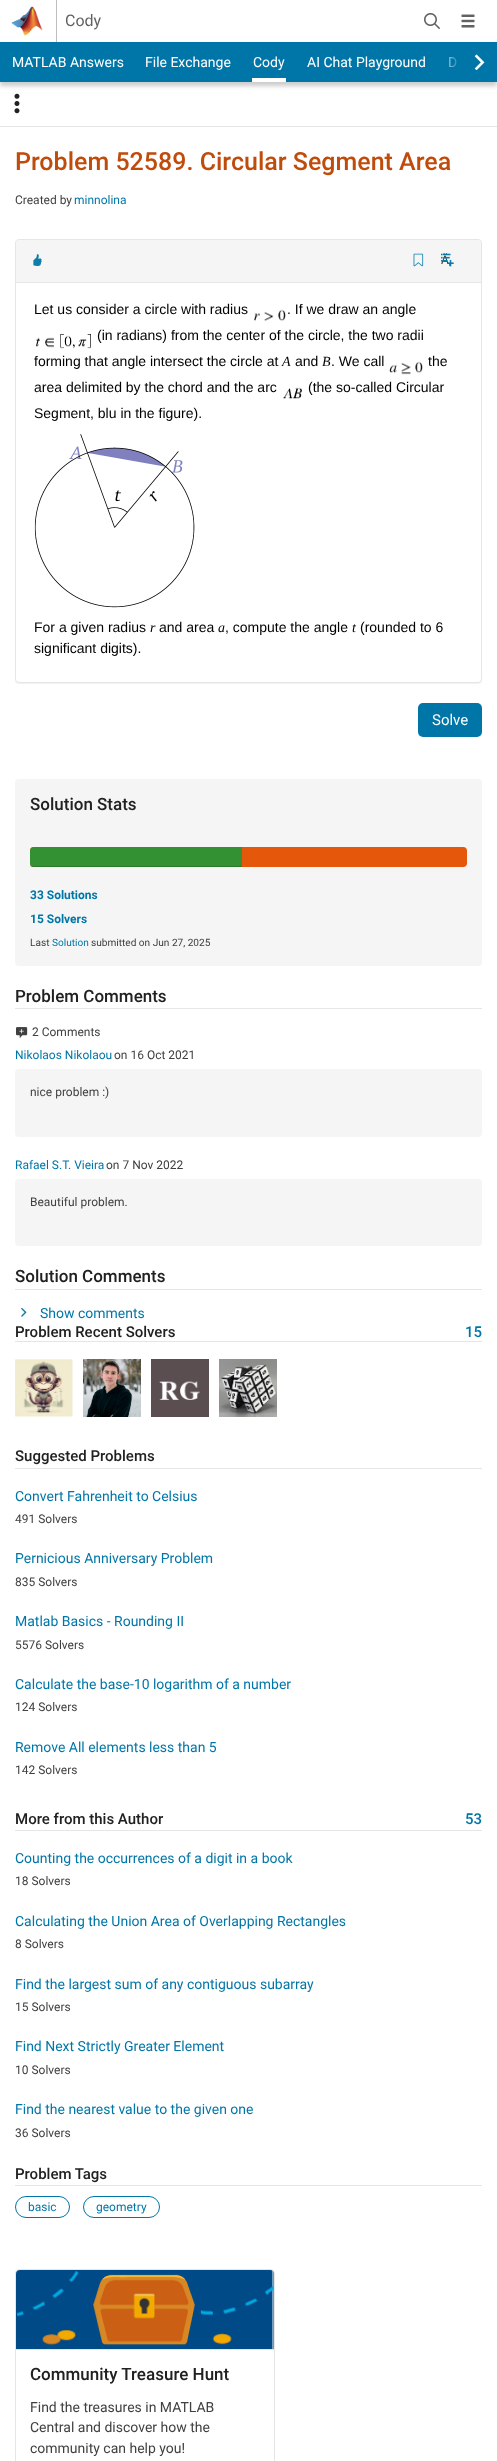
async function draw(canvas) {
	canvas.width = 497;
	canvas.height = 2461;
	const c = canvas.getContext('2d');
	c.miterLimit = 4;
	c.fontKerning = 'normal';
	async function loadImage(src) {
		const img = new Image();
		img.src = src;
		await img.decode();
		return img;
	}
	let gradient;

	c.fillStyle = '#fff';
	c.fillRect(0, 0, 497, 2461);
	c.fillStyle = '#bfbfbf';
	c.fillRect(56, 0, 1, 42);
	c.drawImage(await loadImage('img1.png'), 11, 6, 32, 30);
	c.font = '16px Roboto';
	c.fillStyle = '#616161';
	c.fillText('Cody', 65, 26);
	c.drawImage(await loadImage('img2.png'), 424, 13, 16, 16);
	c.drawImage(await loadImage('img3.png'), 461, 14, 14, 14);
	c.fillStyle = '#00000033';
	c.filter = 'blur(2px)';
	c.beginPath();
	c.rect(0, 46, 497, 40);
	c.fill();
	c.filter = 'none';
	c.fillStyle = '#0076a8';
	c.fillRect(0, 42, 462, 40);
	c.font = '14px Roboto';
	c.fillStyle = '#fff';
	c.fillText('MATLAB Answers', 12, 67);
	c.fillText('File Exchange', 145, 67);
	c.fillRect(252, 78, 34, 4);
	for (const [text, x, y] of [
		['Cody', 253, 67],
		['AI Chat Playground', 307, 67],
		['D', 448, 67],
	]) {
		c.fillText(text, x, y);
	}
	gradient = c.createLinearGradient(437, 62, 487, 62);
	gradient.addColorStop(0, '#0076a800');
	gradient.addColorStop(0.5, '#0076a8');
	gradient.addColorStop(1, '#0076a8');
	c.fillStyle = gradient;
	c.fillRect(448, 42, 37, 40);
	c.drawImage(await loadImage('img4.png'), 474, 54, 11, 16);
	c.fillStyle = '#0076a8';
	c.fillRect(485, 42, 12, 40);
	c.fillStyle = '#e6e6e6';
	c.fillRect(0, 126, 497, 1);
	c.drawImage(await loadImage('img5.png'), 14, 93, 6, 21);
	c.font = '500 25px Roboto';
	c.fillStyle = '#c04c0b';
	c.fillText('Problem 52589. Circular Segment Area', 15, 170);
	c.font = '12px Roboto';
	c.fillStyle = '#404040';
	c.fillText('Created by', 15, 204);
	c.fillStyle = '#0076a8';
	c.fillText('minnolina', 74, 204);
	c.fillStyle = '#0000000d';
	c.filter = 'blur(0.5px)';
	c.beginPath();
	c.roundRect(15, 240, 467, 444, 4);
	c.fill();
	c.filter = 'none';
	c.fillStyle = '#fff';
	c.beginPath();
	c.roundRect(15.5, 239.5, 466, 443, 3.5);
	c.fill();
	c.strokeStyle = '#e6e6e6';
	c.stroke();
	c.fillStyle = '#f5f5f5';
	c.beginPath();
	c.roundRect(16, 240, 465, 43, [4, 4, 0, 0]);
	c.fill();
	c.fillStyle = '#e6e6e6';
	c.fillRect(16, 282, 465, 1);
	c.drawImage(await loadImage('img6.png'), 33, 254, 9, 13);
	c.drawImage(await loadImage('img7.png'), 413, 253, 11, 14);
	c.fillStyle = '#333';
	c.fillText('Ã‚', 441, 264);
	c.drawImage(await loadImage('img8.png'), 441, 253, 13, 14);
	c.font = '14px Liberation Sans';
	c.fillStyle = '#000';
	c.fillText('Let us consider a circle with radius', 34, 314);
	c.drawImage(await loadImage('img9.png'), 254, 309, 32, 12);
	c.fillText('. If we draw an angle', 287, 314);
	c.drawImage(await loadImage('img10.png'), 36, 334, 55, 15);
	c.fillText('(in radians) from the center of the circle, the two radii', 97, 340);
	c.fillText('forming that angle intersect the circle at', 34, 366);
	c.font = 'italic 14px Liberation Serif';
	c.fillText('A', 282, 366);
	c.font = '14px Liberation Sans';
	c.fillText('and', 295, 366);
	c.font = 'italic 14px Liberation Serif';
	c.fillText('B', 322, 366);
	c.font = '14px Liberation Sans';
	c.fillText('. We call', 331, 366);
	c.drawImage(await loadImage('img11.png'), 389, 361, 34, 14);
	c.fillText('the', 428, 366);
	c.fillText('area delimited by the chord and the arc', 34, 392);
	c.drawImage(await loadImage('img12.png'), 283, 387, 19, 12);
	c.fillText('(the so-called Circular', 308, 392);
	c.fillText('Segment, blu in the figure).', 34, 418);
	c.drawImage(await loadImage('img13.png'), 34, 434, 161, 174);
	c.fillText('For a given radius', 34, 632);
	c.font = 'italic 14px Liberation Serif';
	c.fillText('r', 150, 632);
	c.font = '14px Liberation Sans';
	c.fillText('and area', 159, 632);
	c.font = 'italic 14px Liberation Serif';
	c.fillText('a', 218, 632);
	c.font = '14px Liberation Sans';
	c.fillText(', compute the angle', 225, 632);
	c.font = 'italic 14px Liberation Serif';
	c.fillText('t', 352, 632);
	c.font = '14px Liberation Sans';
	c.fillText('(rounded to 6', 360, 632);
	c.fillText('significant digits).', 34, 653);
	c.fillStyle = '#0076a8';
	c.beginPath();
	c.roundRect(418, 703, 64, 34, 5);
	c.fill();
	c.font = '15px Roboto';
	c.fillStyle = '#fff';
	c.fillText('Solve', 432, 725);
	c.fillStyle = '#f5f5f5';
	c.beginPath();
	c.roundRect(15, 779, 467, 187, 4);
	c.fill();
	c.font = '500 17px Roboto';
	c.fillStyle = '#212121';
	c.fillText('Solution Stats', 30, 810);
	c.fillStyle = '#e5570a';
	c.beginPath();
	c.roundRect(30, 847, 437, 20, 4);
	c.fill();
	c.fillStyle = '#339033';
	c.beginPath();
	c.roundRect(30, 847, 212, 20, [4, 0, 0, 4]);
	c.fill();
	c.fillStyle = '#00000026';
	c.fillRect(30, 866, 212, 1);
	c.font = 'bold 12px Roboto';
	c.fillStyle = '#0076a8';
	c.fillText('33 Solutions', 30, 899);
	c.fillText('15 Solvers', 30, 923);
	c.font = '10.1px Roboto';
	c.fillStyle = '#404040';
	c.fillText('Last', 30, 946);
	c.fillStyle = '#0076a8';
	c.fillText('Solution', 52, 946);
	c.fillStyle = '#404040';
	c.fillText('submitted on Jun 27, 2025', 91, 946);
	c.fillStyle = '#e6e6e6';
	c.fillRect(15, 1008, 467, 1);
	c.font = '500 17px Roboto';
	c.fillStyle = '#212121';
	c.fillText('Problem Comments', 15, 1002);
	c.drawImage(await loadImage('img14.png'), 16, 1027, 12, 12);
	c.font = '12px Roboto';
	c.fillStyle = '#404040';
	c.fillText('2 Comments', 32, 1036);
	c.fillStyle = '#0076a8';
	c.fillText('Nikolaos Nikolaou', 15, 1059);
	c.fillStyle = '#404040';
	c.fillText('on 16 Oct 2021', 114, 1059);
	c.fillStyle = '#f5f5f5';
	c.beginPath();
	c.roundRect(15, 1069, 467, 68, 4);
	c.fill();
	c.fillStyle = '#404040';
	c.fillText('nice problem :)', 30, 1096);
	c.fillStyle = '#0076a8';
	c.fillText('Rafael S.T. Vieira', 15, 1169);
	c.fillStyle = '#404040';
	c.fillText('on 7 Nov 2022', 106, 1169);
	c.fillStyle = '#f5f5f5';
	c.beginPath();
	c.roundRect(15, 1179, 467, 67, 4);
	c.fill();
	c.fillStyle = '#404040';
	c.fillText('Beautiful problem.', 30, 1206);
	c.fillStyle = '#e6e6e6';
	c.fillRect(15, 1289, 467, 1);
	c.font = '500 17px Roboto';
	c.fillStyle = '#212121';
	c.fillText('Solution Comments', 15, 1282);
	c.drawImage(await loadImage('img15.png'), 21, 1307, 6, 10);
	c.font = '14px Roboto';
	c.fillStyle = '#0076a8';
	c.fillText('Show comments', 40, 1318);
	c.fillStyle = '#e6e6e6';
	c.fillRect(15, 1341, 467, 1);
	c.font = '500 15px Roboto';
	c.fillStyle = '#212121';
	c.fillText('Problem Recent Solvers', 15, 1337);
	c.fillStyle = '#0076a8';
	c.fillText('15', 465, 1337);
	c.drawImage(await loadImage('img16.png'), 15, 1359, 58, 58);
	c.drawImage(await loadImage('img17.png'), 83, 1359, 58, 58);
	c.drawImage(await loadImage('img18.png'), 151, 1359, 58, 58);
	c.drawImage(await loadImage('img19.png'), 219, 1359, 58, 58);
	c.fillStyle = '#e6e6e6';
	c.fillRect(15, 1468, 467, 1);
	c.fillStyle = '#212121';
	c.fillText('Suggested Problems', 15, 1461);
	c.font = '14px Roboto';
	c.fillStyle = '#0076a8';
	c.fillText('Convert Fahrenheit to Celsius', 15, 1501);
	c.font = '12px Roboto';
	c.fillStyle = '#404040';
	c.fillText('491 Solvers', 15, 1523);
	c.font = '14px Roboto';
	c.fillStyle = '#0076a8';
	c.fillText('Pernicious Anniversary Problem', 15, 1563);
	c.font = '12px Roboto';
	c.fillStyle = '#404040';
	c.fillText('835 Solvers', 15, 1586);
	c.font = '14px Roboto';
	c.fillStyle = '#0076a8';
	c.fillText('Matlab Basics - Rounding II', 15, 1626);
	c.font = '12px Roboto';
	c.fillStyle = '#404040';
	c.fillText('5576 Solvers', 15, 1649);
	c.font = '14px Roboto';
	c.fillStyle = '#0076a8';
	c.fillText('Calculate the base-10 logarithm of a number', 15, 1689);
	c.font = '12px Roboto';
	c.fillStyle = '#404040';
	c.fillText('124 Solvers', 15, 1711);
	c.font = '14px Roboto';
	c.fillStyle = '#0076a8';
	c.fillText('Remove All elements less than 5', 15, 1752);
	c.font = '12px Roboto';
	c.fillStyle = '#404040';
	c.fillText('142 Solvers', 15, 1774);
	c.fillStyle = '#e6e6e6';
	c.fillRect(15, 1830, 467, 1);
	c.font = '500 15px Roboto';
	c.fillStyle = '#212121';
	c.fillText('More from this Author', 15, 1824);
	c.fillStyle = '#0076a8';
	c.fillText('53', 465, 1824);
	c.font = '14px Roboto';
	c.fillText('Counting the occurrences of a digit in a book', 15, 1863);
	c.font = '12px Roboto';
	c.fillStyle = '#404040';
	c.fillText('18 Solvers', 15, 1885);
	c.font = '14px Roboto';
	c.fillStyle = '#0076a8';
	c.fillText('Calculating the Union Area of Overlapping Rectangles', 15, 1926);
	c.font = '12px Roboto';
	c.fillStyle = '#404040';
	c.fillText('8 Solvers', 15, 1948);
	c.font = '14px Roboto';
	c.fillStyle = '#0076a8';
	c.fillText('Find the largest sum of any contiguous subarray', 15, 1989);
	c.font = '12px Roboto';
	c.fillStyle = '#404040';
	c.fillText('15 Solvers', 15, 2011);
	c.font = '14px Roboto';
	c.fillStyle = '#0076a8';
	c.fillText('Find Next Strictly Greater Element', 15, 2051);
	c.font = '12px Roboto';
	c.fillStyle = '#404040';
	c.fillText('10 Solvers', 15, 2074);
	c.font = '14px Roboto';
	c.fillStyle = '#0076a8';
	c.fillText('Find the nearest value to the given one', 15, 2114);
	c.font = '12px Roboto';
	c.fillStyle = '#404040';
	c.fillText('36 Solvers', 15, 2137);
	c.fillStyle = '#e6e6e6';
	c.fillRect(15, 2185, 467, 1);
	c.font = '500 15px Roboto';
	c.fillStyle = '#212121';
	c.fillText('Problem Tags', 15, 2179);
	c.beginPath();
	c.roundRect(15.5, 2196.5, 54, 21, 10.5);
	c.strokeStyle = '#0076a8';
	c.stroke();
	c.font = '12px Roboto';
	c.fillStyle = '#0076a8';
	c.fillText('basic', 28, 2211);
	c.beginPath();
	c.roundRect(83.5, 2196.5, 76, 21, 10.5);
	c.stroke();
	c.fillText('geometry', 96, 2211);
	c.beginPath();
	c.roundRect(15.5, 2269.5, 259, 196, 3.5);
	c.strokeStyle = '#e6e6e6';
	c.stroke();
	c.drawImage(await loadImage('img20.png'), 16, 2270, 258, 79);
	c.fillStyle = '#e6e6e6';
	c.fillRect(16, 2349, 258, 1);
	c.font = '500 17px Roboto';
	c.fillStyle = '#212121';
	c.fillText('Community Treasure Hunt', 30, 2380);
	c.font = '14px Roboto';
	c.fillStyle = '#404040';
	for (const [text, x, y] of [
		['Find the treasures in MATLAB', 30, 2412],
		['Central and discover how the', 30, 2432],
		['community can help you!', 30, 2453],
	]) {
		c.fillText(text, x, y);
	}
}

draw(document.querySelector('canvas'));
